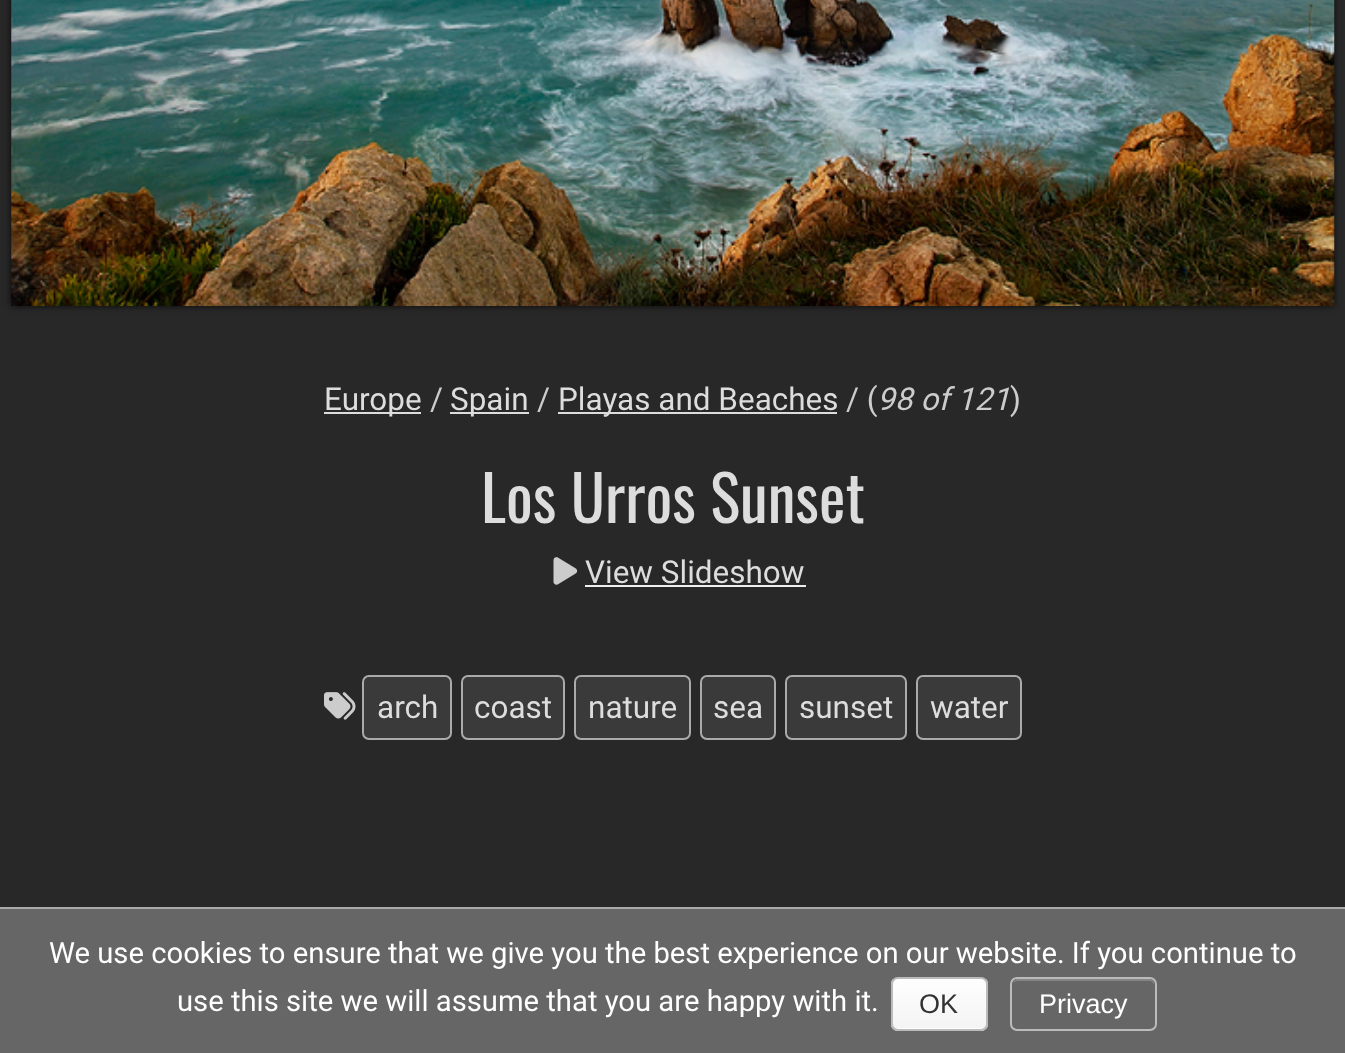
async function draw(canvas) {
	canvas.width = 1345;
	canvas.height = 1053;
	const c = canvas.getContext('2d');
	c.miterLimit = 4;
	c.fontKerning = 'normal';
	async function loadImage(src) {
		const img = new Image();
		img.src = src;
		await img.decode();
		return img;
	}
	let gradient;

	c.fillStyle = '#282828';
	c.fillRect(0, 0, 1345, 1053);
	c.fillStyle = '#000000bf';
	c.filter = 'blur(3.5px)';
	c.beginPath();
	c.rect(11, -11, 1323, 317);
	c.fill();
	c.filter = 'none';
	c.drawImage(await loadImage('img1.png'), 11, 0, 1324, 306);
	c.fillStyle = '#ddd';
	c.fillRect(324, 412, 97, 2);
	c.font = '31.5px Roboto';
	c.fillText('Europe', 324, 410);
	c.fillStyle = '#ccc';
	c.fillText('/', 430, 410);
	c.fillStyle = '#ddd';
	c.fillRect(450, 412, 79, 2);
	c.fillText('Spain', 450, 410);
	c.fillStyle = '#ccc';
	c.fillText('/', 537, 410);
	c.fillStyle = '#ddd';
	c.fillRect(558, 412, 279, 2);
	c.fillText('Playas and Beaches', 558, 410);
	c.fillStyle = '#ccc';
	c.fillText('/ (', 846, 410);
	c.font = 'italic 31.5px Roboto';
	c.fillText('98 of 121', 877, 410);
	c.font = '31.5px Roboto';
	c.fillText(')', 1010, 410);
	c.font = '63px Oswald';
	c.fillStyle = '#ddd';
	c.fillText('Los Urros Sunset', 481, 523);
	c.drawImage(await loadImage('img2.png'), 553, 557, 25, 28);
	c.font = '31.5px Roboto';
	c.fillText('View Slideshow', 585, 583);
	c.fillStyle = '#eee';
	c.fillRect(585, 585, 221, 2);
	c.drawImage(await loadImage('img3.png'), 324, 692, 32, 28);
	c.fillStyle = '#3a3a3a';
	c.beginPath();
	c.roundRect(363, 676, 88, 63, 6);
	c.fill();
	c.strokeStyle = '#aaa';
	c.lineWidth = 2;
	c.stroke();
	c.fillStyle = '#ddd';
	c.fillText('arch', 377, 718);
	c.fillStyle = '#3a3a3a';
	c.beginPath();
	c.roundRect(462, 676, 102, 63, 6);
	c.fill();
	c.stroke();
	c.fillStyle = '#ddd';
	c.fillText('coast', 474, 718);
	c.fillStyle = '#3a3a3a';
	c.beginPath();
	c.roundRect(575, 676, 115, 63, 6);
	c.fill();
	c.stroke();
	c.fillStyle = '#ddd';
	c.fillText('nature', 588, 718);
	c.fillStyle = '#3a3a3a';
	c.beginPath();
	c.roundRect(701, 676, 74, 63, 6);
	c.fill();
	c.stroke();
	c.fillStyle = '#ddd';
	c.fillText('sea', 713, 718);
	c.fillStyle = '#3a3a3a';
	c.beginPath();
	c.roundRect(786, 676, 120, 63, 6);
	c.fill();
	c.stroke();
	c.fillStyle = '#ddd';
	c.fillText('sunset', 799, 718);
	c.fillStyle = '#3a3a3a';
	c.beginPath();
	c.roundRect(917, 676, 104, 63, 6);
	c.fill();
	c.stroke();
	c.fillStyle = '#ddd';
	c.fillText('water', 930, 718);
	c.fillStyle = '#666';
	c.fillRect(0, 909, 1345, 144);
	c.fillStyle = '#aaa';
	c.fillRect(0, 907, 1345, 2);
	c.font = '29.25px Roboto';
	c.fillStyle = '#fff';
	c.fillText('We use cookies to ensure that we give you the best experience on our website. If you continue to', 49, 963);
	c.fillText('use this site we will assume that you are happy with it.', 177, 1011);
	c.save();
	c.beginPath();
	c.roundRect(891, 977, 97, 54, 7);
	c.clip();
	gradient = c.createLinearGradient(939, 979, 939, 1028);
	gradient.addColorStop(0, '#fefefe');
	gradient.addColorStop(1, '#f4f4f4');
	c.fillStyle = gradient;
	c.fillRect(891, 979, 97, 49);
	gradient = c.createLinearGradient(939, 1028, 939, 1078);
	gradient.addColorStop(0, '#fefefe');
	gradient.addColorStop(1, '#f4f4f4');
	c.fillStyle = gradient;
	c.fillRect(891, 1028, 97, 3);
	c.restore();
	c.beginPath();
	c.roundRect(892, 978, 95, 52, 6);
	c.strokeStyle = '#bbb';
	c.stroke();
	c.font = '27px Liberation Sans';
	c.fillStyle = '#333';
	c.fillText('OK', 919, 1013);
	c.fillStyle = '#858585';
	c.beginPath();
	c.moveTo(1017, 981);
	c.lineTo(1150, 981);
	c.bezierCurveTo(1152, 981, 1154, 983, 1154, 986);
	c.lineTo(1154, 982);
	c.bezierCurveTo(1151, 975, 1130, 979, 1127, 979);
	c.lineTo(1017, 979);
	c.lineTo(1014, 981);
	c.lineTo(1013, 983);
	c.bezierCurveTo(1014, 982, 1016, 981, 1017, 981);
	c.closePath();
	c.fill();
	c.beginPath();
	c.roundRect(1011, 978, 145, 52, 6);
	c.stroke();
	c.fillStyle = '#fff';
	c.fillText('Privacy', 1039, 1013);
}

draw(document.querySelector('canvas'));
